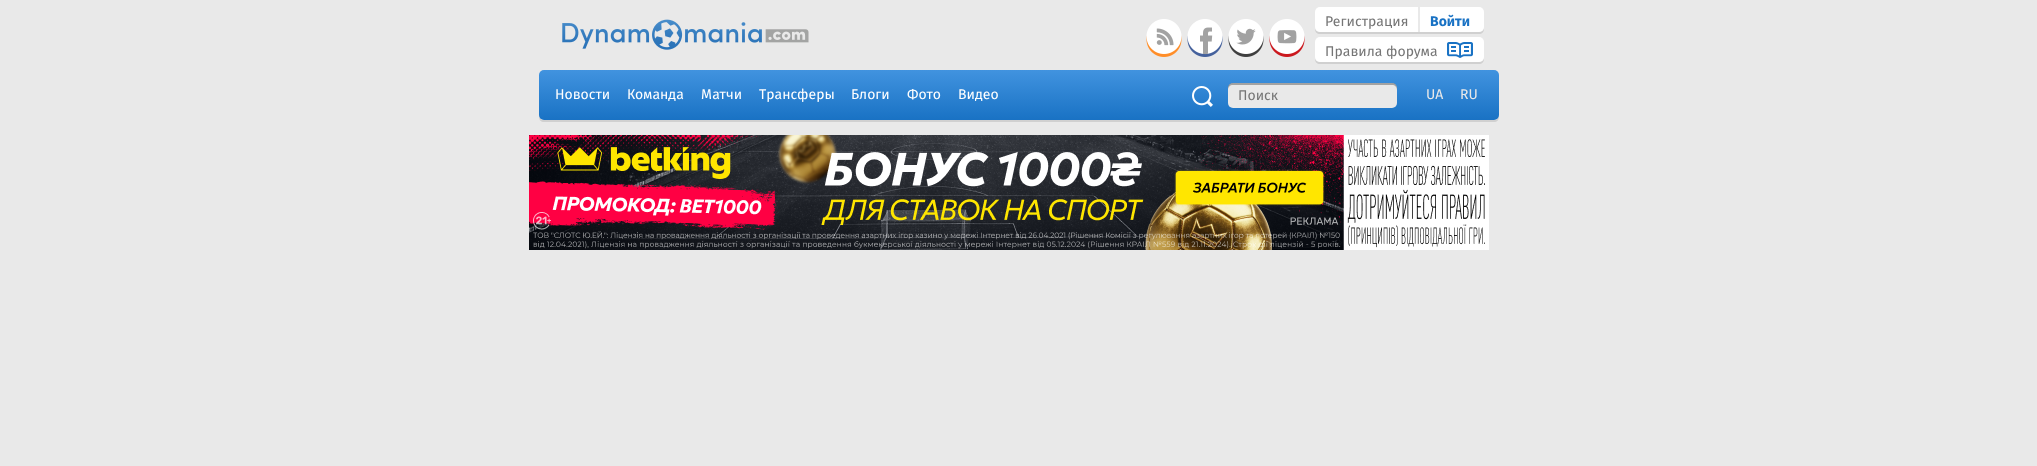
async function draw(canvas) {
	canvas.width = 2037;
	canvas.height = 466;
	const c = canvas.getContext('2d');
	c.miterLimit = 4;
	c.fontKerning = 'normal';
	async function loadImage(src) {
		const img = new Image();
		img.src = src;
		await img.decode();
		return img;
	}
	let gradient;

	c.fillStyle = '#e9e9e9';
	c.fillRect(0, 0, 2037, 466);
	c.drawImage(await loadImage('img1.png'), 562, 19, 247, 31);
	c.drawImage(await loadImage('img2.png'), 1146, 19, 36, 38);
	c.drawImage(await loadImage('img3.png'), 1187, 19, 36, 38);
	c.drawImage(await loadImage('img4.png'), 1228, 19, 36, 38);
	c.drawImage(await loadImage('img5.png'), 1269, 19, 36, 38);
	c.fillStyle = '#d0d0d0';
	c.beginPath();
	c.moveTo(1315, 27);
	c.lineTo(1315, 29);
	c.bezierCurveTo(1315, 32, 1317, 34, 1320, 34);
	c.lineTo(1479, 34);
	c.bezierCurveTo(1482, 34, 1484, 32, 1484, 29);
	c.lineTo(1484, 27);
	c.bezierCurveTo(1484, 30, 1482, 32, 1479, 32);
	c.lineTo(1320, 32);
	c.bezierCurveTo(1317, 32, 1315, 30, 1315, 27);
	c.closePath();
	c.fill();
	c.fillStyle = '#fff';
	c.beginPath();
	c.roundRect(1315, 7, 169, 25, 5);
	c.fill();
	c.fillStyle = '#e9e9e9';
	c.fillRect(1418, 7, 2, 25);
	c.font = '14px Fira Sans';
	c.fillStyle = '#757575';
	c.fillText('Регистрация', 1325, 26);
	c.font = 'bold 14px Fira Sans';
	c.fillStyle = '#1972c4';
	c.fillText('Войти', 1430, 26);
	c.fillStyle = '#d0d0d0';
	c.beginPath();
	c.moveTo(1315, 57);
	c.lineTo(1315, 59);
	c.bezierCurveTo(1315, 62, 1317, 64, 1320, 64);
	c.lineTo(1479, 64);
	c.bezierCurveTo(1482, 64, 1484, 62, 1484, 59);
	c.lineTo(1484, 57);
	c.bezierCurveTo(1484, 60, 1482, 62, 1479, 62);
	c.lineTo(1320, 62);
	c.bezierCurveTo(1317, 62, 1315, 60, 1315, 57);
	c.closePath();
	c.fill();
	c.fillStyle = '#fff';
	c.beginPath();
	c.roundRect(1315, 37, 169, 25, 5);
	c.fill();
	c.font = '14px Fira Sans';
	c.fillStyle = '#757575';
	c.fillText('Правила форума', 1325, 56);
	c.drawImage(await loadImage('img6.png'), 1447, 42, 26, 16);
	c.fillStyle = '#d0d0d0';
	c.beginPath();
	c.moveTo(539, 115);
	c.lineTo(539, 117);
	c.bezierCurveTo(539, 120, 541, 122, 544, 122);
	c.lineTo(1494, 122);
	c.bezierCurveTo(1497, 122, 1499, 120, 1499, 117);
	c.lineTo(1499, 115);
	c.bezierCurveTo(1499, 118, 1497, 120, 1494, 120);
	c.lineTo(544, 120);
	c.bezierCurveTo(541, 120, 539, 118, 539, 115);
	c.closePath();
	c.fill();
	gradient = c.createLinearGradient(1019, 70, 1019, 120);
	gradient.addColorStop(0, '#4193df');
	gradient.addColorStop(1, '#1972c4');
	c.fillStyle = gradient;
	c.beginPath();
	c.roundRect(539, 70, 960, 50, 5);
	c.fill();
	c.fillStyle = '#fff';
	for (const [text, x, y] of [
		['Новости', 555, 99],
		['Команда', 627, 99],
		['Матчи', 701, 99],
		['Трансферы', 759, 99],
		['Блоги', 851, 99],
		['Фото', 907, 99],
		['Видео', 958, 99],
	]) {
		c.fillText(text, x, y);
	}
	c.drawImage(await loadImage('img7.png'), 1192, 86, 21, 21);
	c.fillStyle = '#e9e9e9';
	c.beginPath();
	c.roundRect(1228, 83, 169, 25, 5);
	c.fill();
	c.fillStyle = '#0000004d';
	c.beginPath();
	c.moveTo(1233, 85);
	c.lineTo(1392, 85);
	c.bezierCurveTo(1395, 85, 1397, 87, 1397, 90);
	c.lineTo(1397, 88);
	c.bezierCurveTo(1397, 85, 1395, 83, 1392, 83);
	c.lineTo(1233, 83);
	c.bezierCurveTo(1230, 83, 1228, 85, 1228, 88);
	c.lineTo(1228, 90);
	c.bezierCurveTo(1228, 87, 1230, 85, 1233, 85);
	c.closePath();
	c.fill();
	c.fillStyle = '#757575';
	c.fillText('Поиск', 1238, 100);
	c.fillStyle = '#e9e9e9';
	c.fillText('UA', 1426, 99);
	c.fillText('RU', 1460, 99);
	c.drawImage(await loadImage('img8.png'), 529, 135, 960, 115);
}

draw(document.querySelector('canvas'));
